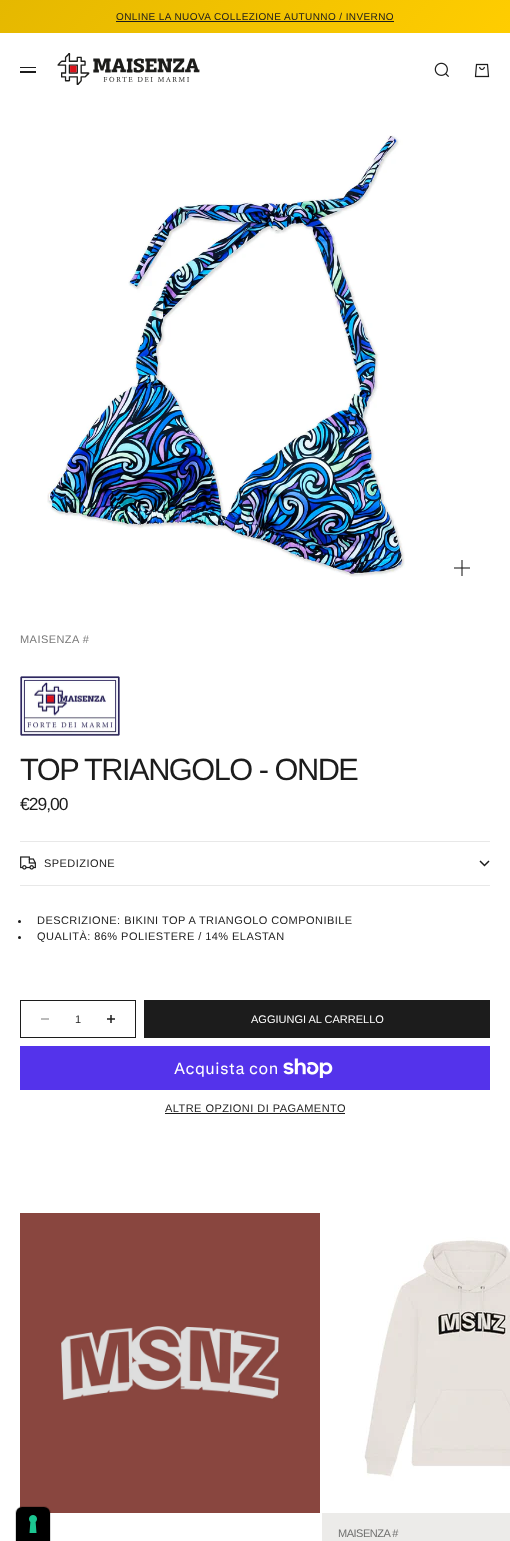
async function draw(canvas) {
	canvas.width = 510;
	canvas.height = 1541;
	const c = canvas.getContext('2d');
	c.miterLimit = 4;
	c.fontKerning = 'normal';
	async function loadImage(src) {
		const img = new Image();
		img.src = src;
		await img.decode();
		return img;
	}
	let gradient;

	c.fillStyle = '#fff';
	c.fillRect(0, 0, 510, 1541);
	c.fillStyle = '#555';
	c.fillRect(110, 1015, 2, 8);
	gradient = c.createLinearGradient(413, 149, 97, -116);
	gradient.addColorStop(0, '#ffcd00');
	gradient.addColorStop(1, '#e5b800');
	c.fillStyle = gradient;
	c.fillRect(0, 0, 510, 33);
	c.letterSpacing = '0.4px';
	c.font = '10px Liberation Sans';
	c.fillStyle = '#1c1c1c';
	c.fillText('ONLINE LA NUOVA COLLEZIONE AUTUNNO / INVERNO', 116, 20);
	for (const [x, y, w, h, color] of [
		[116, 21, 278, 1, '#1c1c1c'],
		[20, 67, 16, 1, '#1c1c1c'],
		[20, 71, 16, 2, '#1c1c1c'],
	]) {
		c.fillStyle = color;
		c.fillRect(x, y, w, h);
	}
	c.drawImage(await loadImage('img1.png'), 57, 53, 143, 32);
	c.drawImage(await loadImage('img2.png'), 434, 62, 15, 15);
	c.drawImage(await loadImage('img3.png'), 474, 63, 16, 15);
	c.drawImage(await loadImage('img4.png'), 47, 135, 358, 442);
	c.drawImage(await loadImage('img5.png'), 454, 560, 16, 16);
	c.letterSpacing = '0.45px';
	c.font = '11px Liberation Sans';
	c.fillStyle = '#777';
	c.fillText('MAISENZA #', 20, 643);
	c.drawImage(await loadImage('img6.png'), 20, 676, 100, 60);
	c.letterSpacing = '-1.5px';
	c.font = '30.75px Liberation Sans';
	c.fillStyle = '#1c1c1c';
	c.fillText('TOP TRIANGOLO - ONDE', 20, 780);
	c.letterSpacing = '-1px';
	c.font = '17.5px Liberation Sans';
	c.fillText('€29,00', 20, 810);
	c.fillStyle = '#e8e8e8';
	c.fillRect(20, 885, 470, 1);
	c.fillRect(20, 841, 470, 1);
	c.drawImage(await loadImage('img7.png'), 20, 856, 16, 14);
	c.letterSpacing = '0.45px';
	c.font = '11px Liberation Sans';
	c.fillStyle = '#1c1c1c';
	c.fillText('SPEDIZIONE', 44, 867);
	c.beginPath();
	c.moveTo(489, 861);
	c.lineTo(484.5, 865.5);
	c.lineTo(480, 861);
	c.strokeStyle = '#1c1c1c';
	c.lineWidth = 1.5;
	c.stroke();
	c.beginPath();
	c.arc(19.5, 921.5, 1.5, 0, 2 * Math.PI);
	c.fill();
	c.fillText('DESCRIZIONE: BIKINI TOP A TRIANGOLO COMPONIBILE', 37, 924);
	c.beginPath();
	c.arc(19.5, 937.5, 1.5, 0, 2 * Math.PI);
	c.fill();
	c.fillText('QUALITÀ: 86% POLIESTERE / 14% ELASTAN', 37, 940);
	c.lineWidth = 1;
	c.strokeRect(20.5, 1000.5, 115, 37);
	c.fillStyle = '#bbb';
	c.fillRect(41, 1018, 8, 2);
	c.fillStyle = '#1c1c1c';
	c.fillText('1', 75, 1023);
	for (const [x, y, w, h, color] of [
		[107, 1018, 8, 2, '#555'],
		[110, 1018, 2, 2, '#2a2a2a'],
		[144, 1000, 346, 38, '#1c1c1c'],
	]) {
		c.fillStyle = color;
		c.fillRect(x, y, w, h);
	}
	c.letterSpacing = '0px';
	c.fillStyle = '#fff';
	c.fillText('AGGIUNGI AL CARRELLO', 251, 1023);
	c.fillStyle = '#5433eb';
	c.fillRect(20, 1046, 470, 44);
	c.letterSpacing = '0.45px';
	c.font = '16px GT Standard';
	c.fillStyle = '#fff';
	c.fillText('Acquista con', 174, 1074);
	c.drawImage(await loadImage('img8.png'), 283, 1058, 50, 20);
	c.font = '11px Liberation Sans';
	c.fillStyle = '#1c1c1c';
	c.fillText('ALTRE OPZIONI DI PAGAMENTO', 165, 1112);
	c.fillRect(165, 1113, 180, 1);
	c.drawImage(await loadImage('img9.png'), 20, 1213, 300, 300);
	c.beginPath();
	c.moveTo(184.5, 1387);
	c.lineTo(172, 1387);
	c.moveTo(178.5, 1393.5);
	c.lineTo(172, 1387);
	c.lineTo(178.5, 1380.5);
	c.strokeStyle = '#88463e';
	c.lineWidth = 0.8;
	c.stroke();
	c.fillStyle = '#ecebe9';
	c.fillRect(322, 1513, 188, 28);
	c.drawImage(await loadImage('img10.png'), 322, 1213, 188, 300);
	c.letterSpacing = '-0.5px';
	c.fillStyle = '#6f6f6e';
	c.fillText('MAISENZA #', 338, 1537);
	c.beginPath();
	c.moveTo(22, 1506.5);
	c.lineTo(44, 1506.5);
	c.bezierCurveTo(47.5, 1506.5, 50.5, 1509.5, 50.5, 1513);
	c.lineTo(50.5, 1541.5);
	c.lineTo(15.5, 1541.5);
	c.lineTo(15.5, 1513);
	c.bezierCurveTo(15.5, 1509.5, 18.5, 1506.5, 22, 1506.5);
	c.closePath();
	c.strokeStyle = '#00000026';
	c.lineWidth = 1;
	c.stroke();
	c.fillStyle = '#000';
	c.beginPath();
	c.roundRect(16, 1507, 34, 34, [6, 6, 0, 0]);
	c.fill();
	c.drawImage(await loadImage('img11.png'), 29, 1515, 8, 18);
}

draw(document.querySelector('canvas'));
